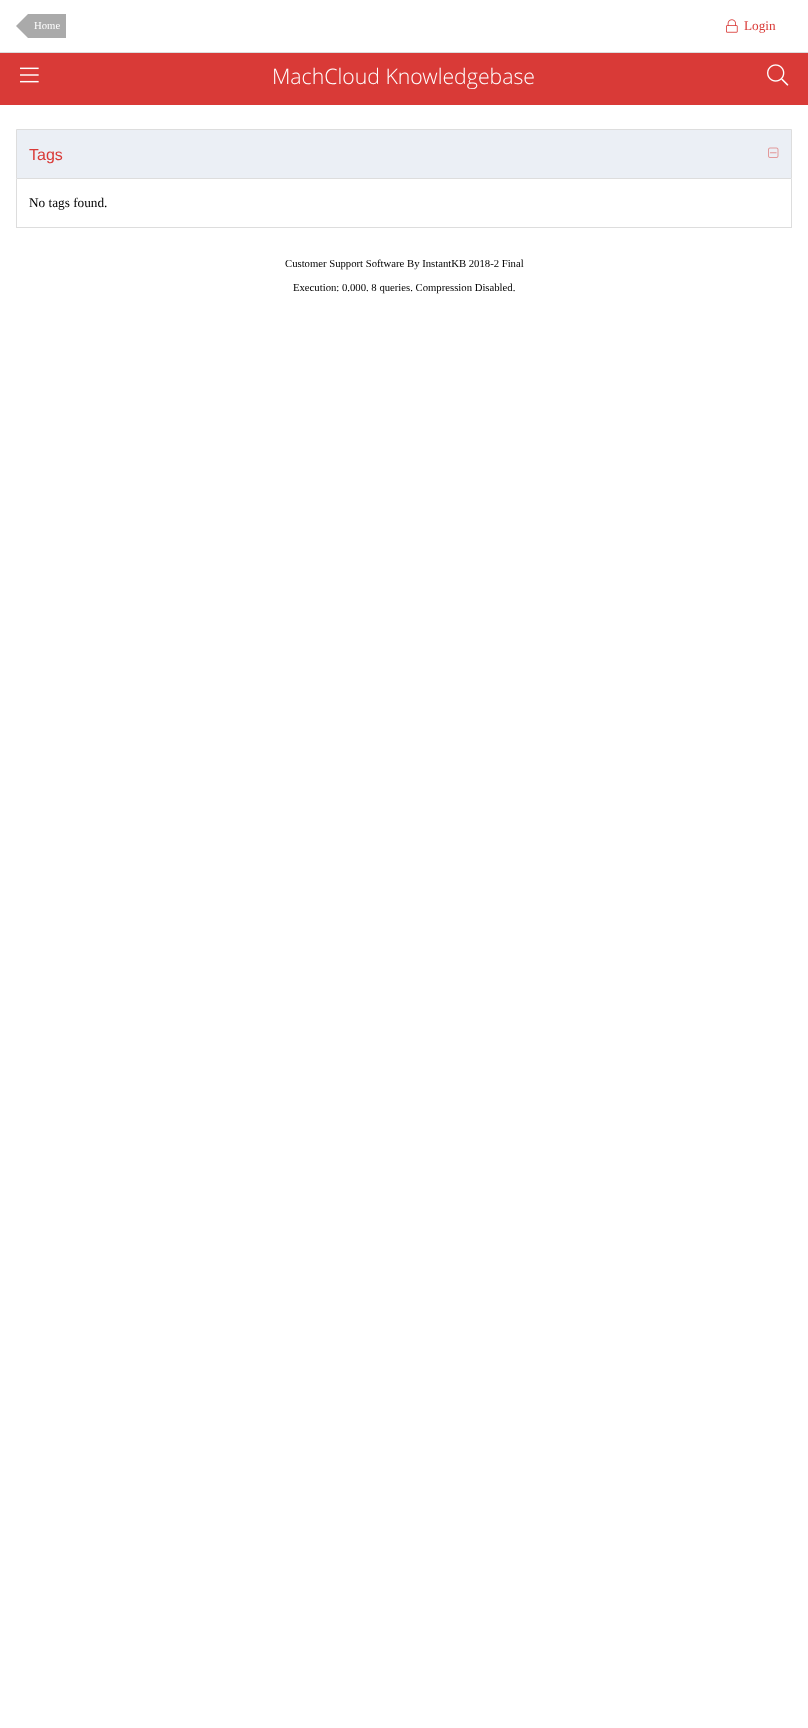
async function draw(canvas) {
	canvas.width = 808;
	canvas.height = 1728;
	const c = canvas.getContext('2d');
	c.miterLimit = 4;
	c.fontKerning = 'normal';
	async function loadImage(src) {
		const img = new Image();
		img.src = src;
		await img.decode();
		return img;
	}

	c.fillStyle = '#fff';
	c.fillRect(0, 0, 808, 1728);
	c.fillStyle = '#ddd';
	c.fillRect(0, 52, 808, 1);
	c.fillStyle = '#aaa';
	c.beginPath();
	c.moveTo(28, 14);
	c.lineTo(28, 38);
	c.lineTo(16, 26);
	c.closePath();
	c.fill();
	c.fillRect(28, 14, 38, 24);
	c.font = '10.7px Liberation Serif';
	c.fillStyle = '#fff';
	c.fillText('Home', 34, 29);
	c.drawImage(await loadImage('img1.png'), 726, 19, 12, 14);
	c.font = '13.25px Liberation Serif';
	c.fillStyle = '#d93a37';
	c.fillText('Login', 744, 30);
	c.fillRect(0, 53, 808, 52);
	c.drawImage(await loadImage('img2.png'), 20, 67, 19, 16);
	c.font = '300 21.25px Open Sans';
	c.fillStyle = '#fff';
	c.fillText('MachCloud Knowledgebase', 272, 84);
	c.drawImage(await loadImage('img3.png'), 767, 64, 22, 22);
	c.fillStyle = '#ebeff5';
	c.beginPath();
	c.rect(16.5, 129.5, 775, 49);
	c.fill();
	c.strokeStyle = '#ddd';
	c.stroke();
	c.font = '16px Liberation Sans';
	c.fillStyle = '#d93a37';
	c.fillText('Tags', 29, 160);
	c.drawImage(await loadImage('img4.png'), 768, 147, 11, 11);
	c.fillStyle = '#ddd';
	c.fillRect(791, 179, 1, 48);
	c.fillRect(16, 179, 1, 48);
	c.font = '13.25px Liberation Serif';
	c.fillStyle = '#000';
	c.fillText('No tags found.', 29, 207);
	c.fillStyle = '#ddd';
	c.fillRect(16, 227, 776, 1);
	c.font = '10.7px Liberation Serif';
	c.fillStyle = '#000';
	c.fillText('Customer Support Software By InstantKB 2018-2 Final', 285, 267);
	c.fillText('Execution: 0.000. 8 queries. Compression Disabled.', 293, 291);
}

draw(document.querySelector('canvas'));
